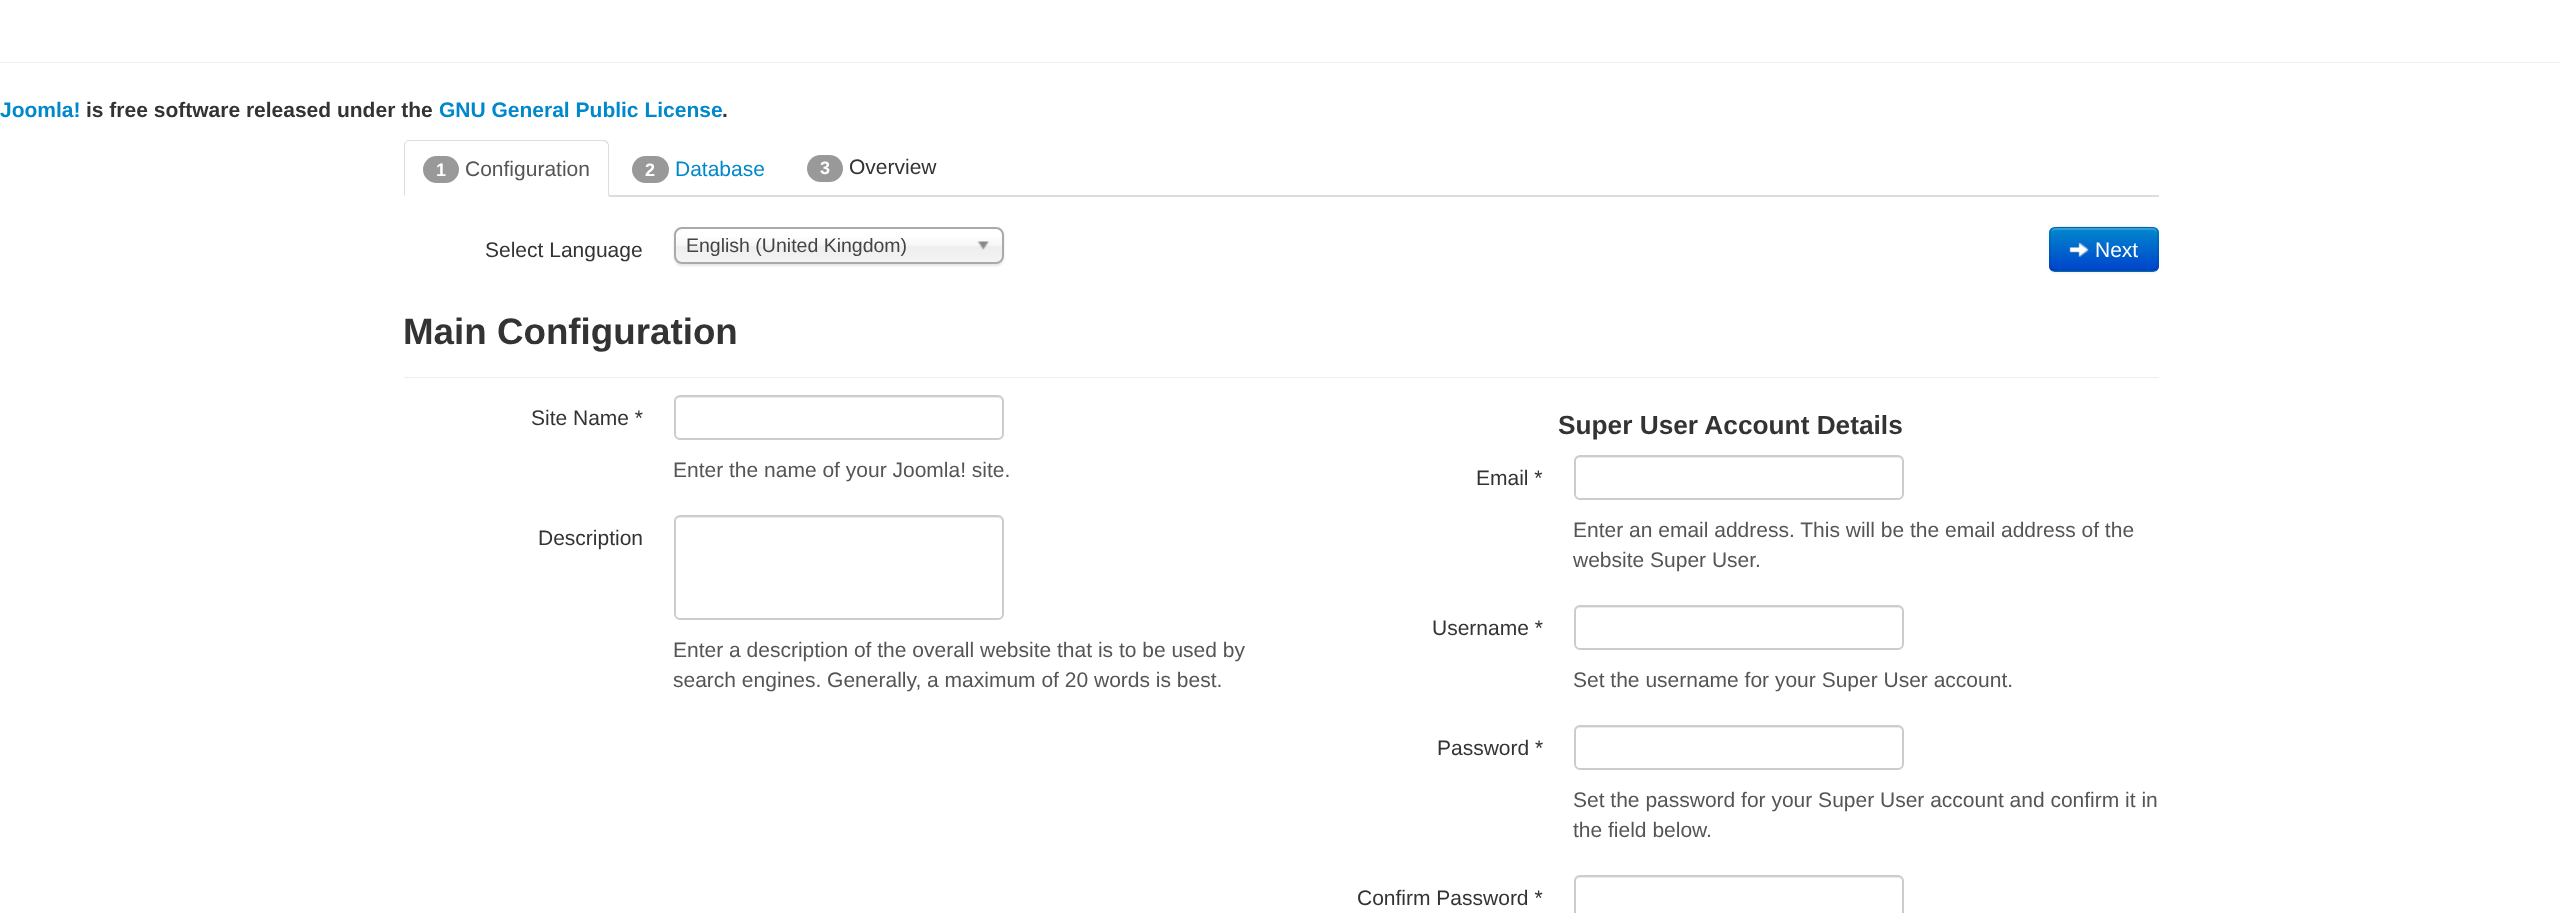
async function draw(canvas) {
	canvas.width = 2560;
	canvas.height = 913;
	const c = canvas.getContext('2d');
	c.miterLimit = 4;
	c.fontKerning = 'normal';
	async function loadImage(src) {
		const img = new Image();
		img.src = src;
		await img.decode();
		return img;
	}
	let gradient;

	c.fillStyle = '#fff';
	c.fillRect(0, 0, 2560, 913);
	c.fillStyle = '#eee';
	c.fillRect(0, 62, 2560, 1);
	c.font = 'bold 21px Liberation Sans';
	c.fillStyle = '#08c';
	c.fillText('Joomla!', 0, 117);
	c.fillStyle = '#333';
	c.fillText('is free software released under the', 86, 117);
	c.fillStyle = '#08c';
	c.fillText('GNU General Public License', 439, 117);
	c.fillStyle = '#333';
	c.fillText('.', 722, 117);
	c.fillStyle = '#ddd';
	c.fillRect(609, 195, 1550, 2);
	c.beginPath();
	c.moveTo(410, 140);
	c.bezierCurveTo(408, 140, 406, 140, 406, 142);
	c.bezierCurveTo(407, 141, 409, 141, 410, 141);
	c.lineTo(603, 141);
	c.lineTo(606, 142);
	c.lineTo(607, 141);
	c.bezierCurveTo(606, 140, 604, 140, 603, 140);
	c.closePath();
	c.fill();
	c.beginPath();
	c.moveTo(607, 141);
	c.bezierCurveTo(608, 142, 609, 144, 609, 146);
	c.lineTo(609, 196);
	c.lineTo(608, 196);
	c.lineTo(608, 195);
	c.lineTo(608, 145);
	c.lineTo(606, 142);
	c.closePath();
	c.fill();
	c.beginPath();
	c.moveTo(406, 142);
	c.bezierCurveTo(404, 142, 404, 144, 404, 146);
	c.lineTo(404, 196);
	c.lineTo(405, 195);
	c.lineTo(405, 146);
	c.bezierCurveTo(405, 144, 406, 143, 406, 142);
	c.closePath();
	c.fill();
	c.fillStyle = '#999';
	c.beginPath();
	c.roundRect(423, 156, 36, 27, 13.5);
	c.fill();
	c.font = 'bold 18px Liberation Sans';
	c.fillStyle = '#fff';
	c.fillText('1', 436, 176);
	c.font = '21px Liberation Sans';
	c.fillStyle = '#555';
	c.fillText('Configuration', 465, 176);
	c.fillStyle = '#999';
	c.beginPath();
	c.roundRect(632, 156, 37, 27, 13.5);
	c.fill();
	c.font = 'bold 18px Liberation Sans';
	c.fillStyle = '#fff';
	c.fillText('2', 645, 176);
	c.font = '21px Liberation Sans';
	c.fillStyle = '#08c';
	c.fillText('Database', 675, 176);
	c.fillStyle = '#999';
	c.beginPath();
	c.roundRect(807, 155, 36, 27, 13.5);
	c.fill();
	c.font = 'bold 18px Liberation Sans';
	c.fillStyle = '#fff';
	c.fillText('3', 820, 174);
	c.font = '21px Liberation Sans';
	c.fillStyle = '#333';
	c.fillText('Overview', 849, 174);
	c.fillText('Select Language', 485, 257);
	c.fillStyle = '#0000001a';
	c.filter = 'blur(1px)';
	c.beginPath();
	c.roundRect(674, 228, 330, 38, 8);
	c.fill();
	c.filter = 'none';
	gradient = c.createLinearGradient(839, 228, 839, 263);
	gradient.addColorStop(0.2, '#fff');
	gradient.addColorStop(0.5, '#f6f6f6');
	gradient.addColorStop(0.52, '#eee');
	gradient.addColorStop(1, '#f4f4f4');
	c.fillStyle = gradient;
	c.beginPath();
	c.roundRect(675, 228, 327, 35, 6);
	c.fill();
	c.beginPath();
	c.roundRect(675, 228, 328, 35, 7);
	c.strokeStyle = '#aaa';
	c.lineWidth = 2;
	c.stroke();
	c.font = '19.5px Liberation Sans';
	c.fillStyle = '#444';
	c.fillText('English (United Kingdom)', 686, 252);
	c.drawImage(await loadImage('img1.png'), 977, 241, 12, 9);
	c.fillStyle = '#0000000d';
	c.filter = 'blur(1.5px)';
	c.beginPath();
	c.roundRect(2049, 228, 110, 45, 6);
	c.fill();
	c.filter = 'none';
	c.fillStyle = '#006dcc';
	c.beginPath();
	c.roundRect(2049, 227, 110, 45, 6);
	c.fill();
	c.save();
	c.beginPath();
	c.roundRect(2049, 227, 110, 45, 6);
	c.clip();
	gradient = c.createLinearGradient(2104, 228, 2104, 270);
	gradient.addColorStop(0, '#08c');
	gradient.addColorStop(1, '#04c');
	c.fillStyle = gradient;
	c.fillRect(2049, 228, 110, 42);
	c.restore();
	c.fillStyle = '#ffffff33';
	c.beginPath();
	c.moveTo(2055, 230);
	c.lineTo(2152, 230);
	c.bezierCurveTo(2155, 230, 2157, 232, 2157, 234);
	c.lineTo(2157, 233);
	c.bezierCurveTo(2157, 230, 2155, 228, 2152, 228);
	c.lineTo(2056, 228);
	c.bezierCurveTo(2054, 228, 2052, 230, 2051, 232);
	c.bezierCurveTo(2052, 231, 2054, 230, 2055, 230);
	c.closePath();
	c.fill();
	c.beginPath();
	c.moveTo(2156, 269);
	c.lineTo(2153, 270.5);
	c.lineTo(2054.5, 270.5);
	c.lineTo(2051.5, 269);
	c.strokeStyle = '#00000040';
	c.lineWidth = 1.5;
	c.stroke();
	c.beginPath();
	c.moveTo(2051.5, 269);
	c.bezierCurveTo(2049, 267, 2050, 263, 2050, 260);
	c.lineTo(2050, 249);
	c.bezierCurveTo(2050, 224.5, 2046, 227, 2071, 227);
	c.lineTo(2136, 227);
	c.bezierCurveTo(2161.5, 227, 2158, 224.5, 2158, 249);
	c.lineTo(2158, 260);
	c.bezierCurveTo(2158, 263, 2158.5, 267, 2156, 269);
	c.strokeStyle = '#0000001a';
	c.stroke();
	c.drawImage(await loadImage('img2.png'), 2069, 242, 20, 16);
	c.font = '21px Liberation Sans';
	c.fillStyle = '#fff';
	c.fillText('Next', 2095, 257);
	c.font = 'bold 36.75px Liberation Sans';
	c.fillStyle = '#333';
	c.fillText('Main Configuration', 403, 344);
	c.fillStyle = '#eee';
	c.fillRect(404, 377, 1755, 1);
	c.font = '21px Liberation Sans';
	c.fillStyle = '#333';
	c.fillText('Site Name *', 531, 425);
	c.fillStyle = '#ececec';
	c.beginPath();
	c.moveTo(680, 398);
	c.lineTo(998, 398);
	c.bezierCurveTo(1000, 398, 1002, 400, 1002, 402);
	c.bezierCurveTo(1002, 399, 1000, 396, 997, 396);
	c.lineTo(680, 396);
	c.bezierCurveTo(677, 396, 675, 399, 675, 402);
	c.bezierCurveTo(675, 400, 677, 398, 680, 398);
	c.closePath();
	c.fill();
	c.beginPath();
	c.roundRect(675, 396, 328, 43, 5);
	c.strokeStyle = '#ccc';
	c.lineWidth = 2;
	c.stroke();
	c.fillStyle = '#555';
	c.fillText('Enter the name of your Joomla! site.', 673, 477);
	c.fillStyle = '#333';
	c.fillText('Description', 538, 545);
	c.fillStyle = '#ececec';
	c.beginPath();
	c.moveTo(680, 518);
	c.lineTo(998, 518);
	c.bezierCurveTo(1000, 518, 1002, 520, 1002, 522);
	c.bezierCurveTo(1002, 519, 1000, 516, 997, 516);
	c.lineTo(680, 516);
	c.bezierCurveTo(677, 516, 675, 519, 675, 522);
	c.bezierCurveTo(675, 520, 677, 518, 680, 518);
	c.closePath();
	c.fill();
	c.beginPath();
	c.roundRect(675, 516, 328, 103, 5);
	c.stroke();
	c.fillStyle = '#555';
	c.fillText('Enter a description of the overall website that is to be used by', 673, 657);
	c.fillText('search engines. Generally, a maximum of 20 words is best.', 673, 687);
	c.font = 'bold 26.25px Liberation Sans';
	c.fillStyle = '#333';
	c.fillText('Super User Account Details', 1558, 434);
	c.font = '21px Liberation Sans';
	c.fillText('Email *', 1476, 485);
	c.fillStyle = '#ececec';
	c.beginPath();
	c.moveTo(1580, 458);
	c.lineTo(1898, 458);
	c.bezierCurveTo(1900, 458, 1902, 460, 1902, 462);
	c.bezierCurveTo(1902, 459, 1900, 456, 1897, 456);
	c.lineTo(1580, 456);
	c.bezierCurveTo(1577, 456, 1575, 459, 1575, 462);
	c.bezierCurveTo(1575, 460, 1577, 458, 1580, 458);
	c.closePath();
	c.fill();
	c.beginPath();
	c.roundRect(1575, 456, 328, 43, 5);
	c.stroke();
	c.fillStyle = '#555';
	c.fillText('Enter an email address. This will be the email address of the', 1573, 537);
	c.fillText('website Super User.', 1573, 567);
	c.fillStyle = '#333';
	c.fillText('Username *', 1432, 635);
	c.fillStyle = '#ececec';
	c.beginPath();
	c.moveTo(1580, 608);
	c.lineTo(1898, 608);
	c.bezierCurveTo(1900, 608, 1902, 610, 1902, 612);
	c.bezierCurveTo(1902, 609, 1900, 606, 1897, 606);
	c.lineTo(1580, 606);
	c.bezierCurveTo(1577, 606, 1575, 609, 1575, 612);
	c.bezierCurveTo(1575, 610, 1577, 608, 1580, 608);
	c.closePath();
	c.fill();
	c.beginPath();
	c.roundRect(1575, 606, 328, 43, 5);
	c.stroke();
	c.fillStyle = '#555';
	c.fillText('Set the username for your Super User account.', 1573, 687);
	c.fillStyle = '#333';
	c.fillText('Password *', 1437, 755);
	c.fillStyle = '#ececec';
	c.beginPath();
	c.moveTo(1580, 728);
	c.lineTo(1898, 728);
	c.bezierCurveTo(1900, 728, 1902, 730, 1902, 732);
	c.bezierCurveTo(1902, 729, 1900, 726, 1897, 726);
	c.lineTo(1580, 726);
	c.bezierCurveTo(1577, 726, 1575, 729, 1575, 732);
	c.bezierCurveTo(1575, 730, 1577, 728, 1580, 728);
	c.closePath();
	c.fill();
	c.beginPath();
	c.roundRect(1575, 726, 328, 43, 5);
	c.stroke();
	c.fillStyle = '#555';
	c.fillText('Set the password for your Super User account and confirm it in', 1573, 807);
	c.fillText('the field below.', 1573, 837);
	c.fillStyle = '#333';
	c.fillText('Confirm Password *', 1357, 905);
	c.fillStyle = '#ececec';
	c.beginPath();
	c.moveTo(1580, 878);
	c.lineTo(1898, 878);
	c.bezierCurveTo(1900, 878, 1902, 880, 1902, 882);
	c.bezierCurveTo(1902, 879, 1900, 876, 1897, 876);
	c.lineTo(1580, 876);
	c.bezierCurveTo(1577, 876, 1575, 879, 1575, 882);
	c.bezierCurveTo(1575, 880, 1577, 878, 1580, 878);
	c.closePath();
	c.fill();
	c.beginPath();
	c.roundRect(1575, 876, 328, 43, 5);
	c.stroke();
}

draw(document.querySelector('canvas'));
